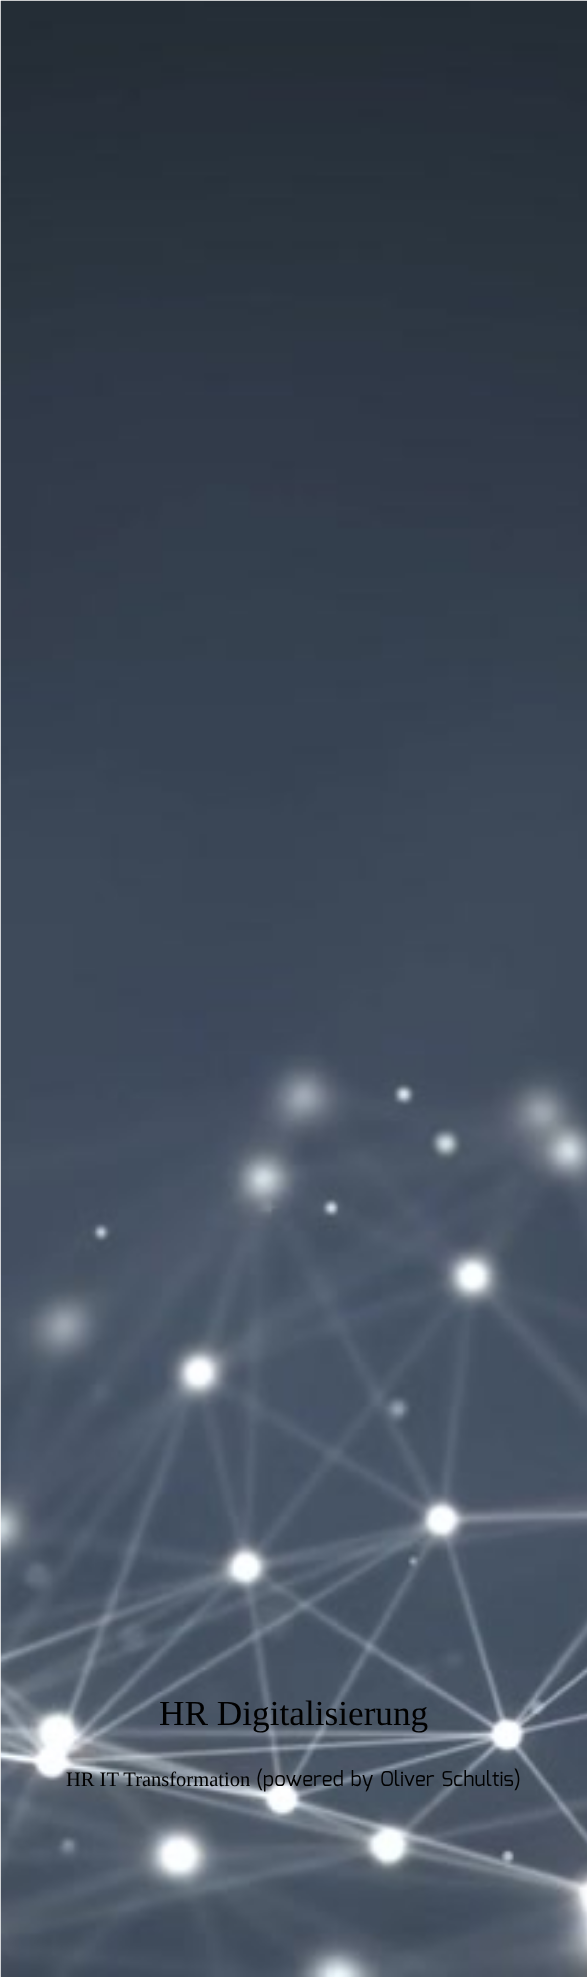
async function draw(canvas) {
	canvas.width = 587;
	canvas.height = 1977;
	const c = canvas.getContext('2d');
	c.miterLimit = 4;
	c.fontKerning = 'normal';
	async function loadImage(src) {
		const img = new Image();
		img.src = src;
		await img.decode();
		return img;
	}

	c.fillStyle = '#fff';
	c.fillRect(0, 0, 587, 1977);
	c.drawImage(await loadImage('img1.png'), 0, 0, 587, 1977);
	c.font = '35.25px Liberation Serif';
	c.fillStyle = '#000';
	c.fillText('HR Digitalisierung', 159, 1725);
	c.font = '20.5px Liberation Serif';
	c.fillText('HR IT Transformation', 66, 1786);
	c.font = '20.5px Mina';
	c.fillText('(powered by Oliver Schultis)', 256, 1786);
}

draw(document.querySelector('canvas'));
